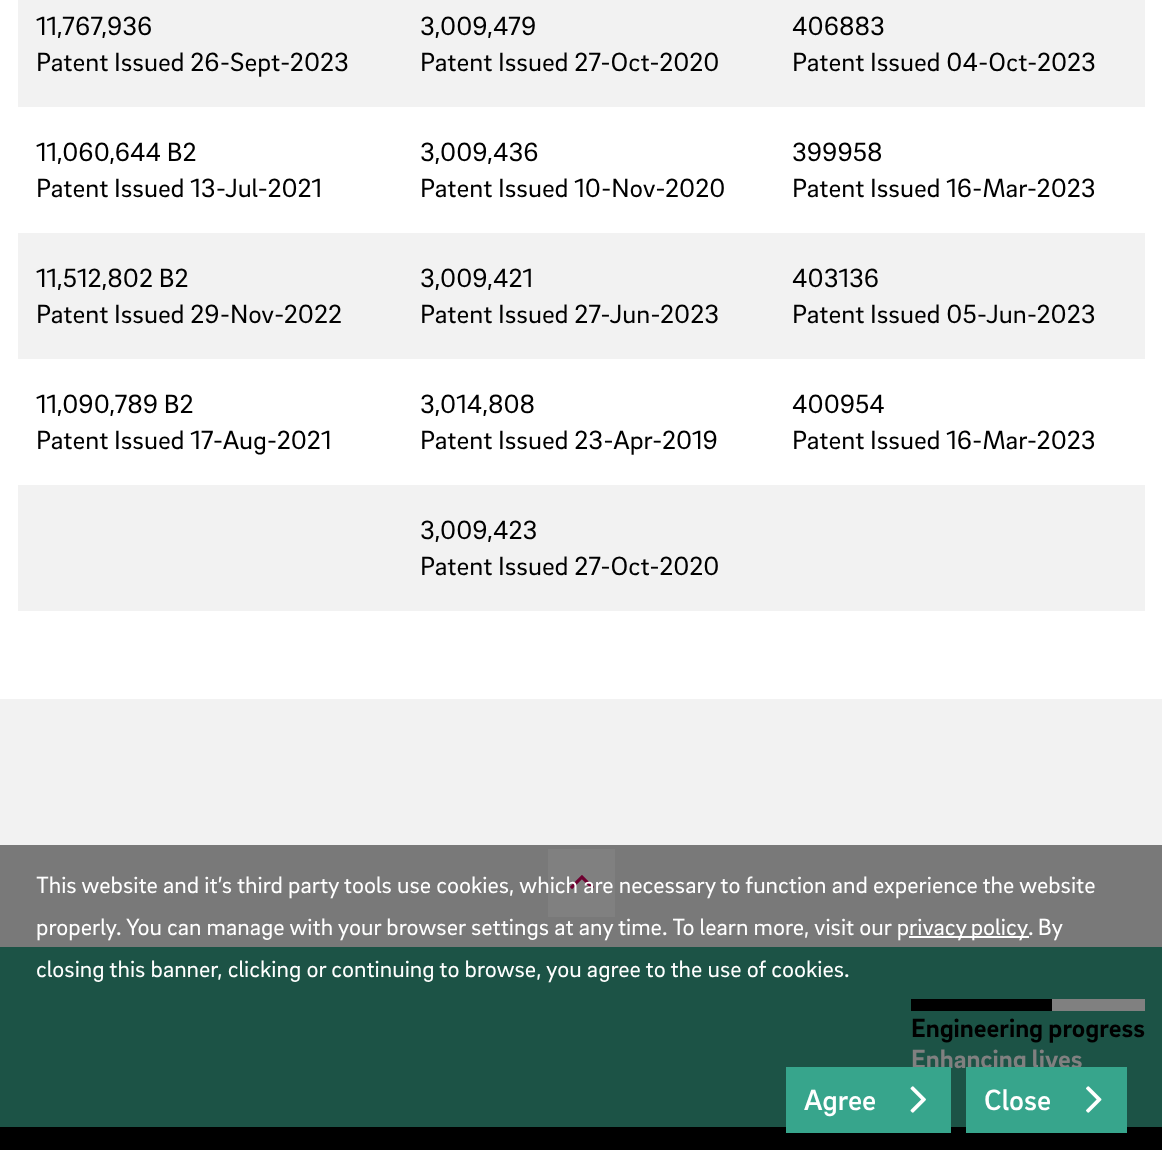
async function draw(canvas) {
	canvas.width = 1162;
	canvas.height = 1150;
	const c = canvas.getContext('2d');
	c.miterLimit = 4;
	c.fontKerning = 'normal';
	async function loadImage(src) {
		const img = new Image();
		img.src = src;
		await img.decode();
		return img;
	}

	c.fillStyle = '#fff';
	c.fillRect(0, 0, 1162, 1150);
	c.fillStyle = '#f2f2f2';
	c.fillRect(18, 0, 1127, 107);
	c.font = '27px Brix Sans';
	c.fillStyle = '#000';
	for (const [text, x, y] of [
		['11,767,936', 36, 35],
		['Patent Issued 26-Sept-2023', 36, 71],
		['3,009,479', 420, 35],
		['Patent Issued 27-Oct-2020', 420, 71],
		['406883', 792, 35],
		['Patent Issued 04-Oct-2023', 792, 71],
		['11,060,644 B2', 36, 161],
		['Patent Issued 13-Jul-2021', 36, 197],
		['3,009,436', 420, 161],
		['Patent Issued 10-Nov-2020', 420, 197],
		['399958', 792, 161],
		['Patent Issued 16-Mar-2023', 792, 197],
	]) {
		c.fillText(text, x, y);
	}
	c.fillStyle = '#f2f2f2';
	c.fillRect(18, 233, 1127, 126);
	c.fillStyle = '#000';
	for (const [text, x, y] of [
		['11,512,802 B2', 36, 287],
		['Patent Issued 29-Nov-2022', 36, 323],
		['3,009,421', 420, 287],
		['Patent Issued 27-Jun-2023', 420, 323],
		['403136', 792, 287],
		['Patent Issued 05-Jun-2023', 792, 323],
		['11,090,789 B2', 36, 413],
		['Patent Issued 17-Aug-2021', 36, 449],
		['3,014,808', 420, 413],
		['Patent Issued 23-Apr-2019', 420, 449],
		['400954', 792, 413],
		['Patent Issued 16-Mar-2023', 792, 449],
	]) {
		c.fillText(text, x, y);
	}
	c.fillStyle = '#f2f2f2';
	c.fillRect(18, 485, 1127, 126);
	c.fillStyle = '#000';
	c.fillText('3,009,423', 420, 539);
	c.fillText('Patent Issued 27-Oct-2020', 420, 575);
	for (const [x, y, w, h, color] of [
		[0, 699, 1162, 146, '#f2f2f2'],
		[0, 845, 1162, 102, '#797979'],
		[548, 849, 67, 68, '#808080'],
	]) {
		c.fillStyle = color;
		c.fillRect(x, y, w, h);
	}
	c.drawImage(await loadImage('img1.png'), 570, 875, 24, 14);
	c.font = '24px Brix Sans';
	c.fillStyle = '#fff';
	c.fillText('This website and it’s third party tools use cookies, which are necessary to function and experience the website', 36, 893);
	c.fillText('properly. You can manage with your browser settings at any time. To learn more, visit our p', 36, 935);
	c.fillRect(909, 936, 120, 2);
	c.wordSpacing = '-1px';
	c.fillText('rivacy policy', 909, 935);
	c.fillText('. By', 1028, 935);
	c.fillStyle = '#1c5346';
	c.fillRect(0, 947, 1162, 180);
	c.wordSpacing = '0px';
	c.fillStyle = '#fff';
	c.fillText('closing this banner, clicking or continuing to browse, you agree to the use of cookies.', 36, 977);
	c.font = 'bold 27px Brix Sans';
	c.fillStyle = '#808080';
	c.fillText('Enhancing lives', 911, 1068);
	c.fillStyle = '#000';
	c.fillRect(0, 1127, 1162, 23);
	c.fillStyle = '#37a58c';
	c.fillRect(786, 1067, 165, 66);
	c.font = '500 30px Brix Sans';
	c.fillStyle = '#fff';
	c.fillText('Agree', 804, 1110);
	c.drawImage(await loadImage('img2.png'), 910, 1086, 16, 27);
	c.fillStyle = '#37a58c';
	c.fillRect(966, 1067, 161, 66);
	c.fillStyle = '#fff';
	c.fillText('Close', 984, 1110);
	c.drawImage(await loadImage('img3.png'), 1086, 1086, 16, 27);
	c.fillStyle = '#000';
	c.fillRect(911, 999, 141, 12);
	c.fillStyle = '#808080';
	c.fillRect(1052, 999, 93, 12);
	c.font = 'bold 27px Brix Sans';
	c.fillStyle = '#000';
	c.fillText('Engineering progress', 911, 1037);
}

draw(document.querySelector('canvas'));
